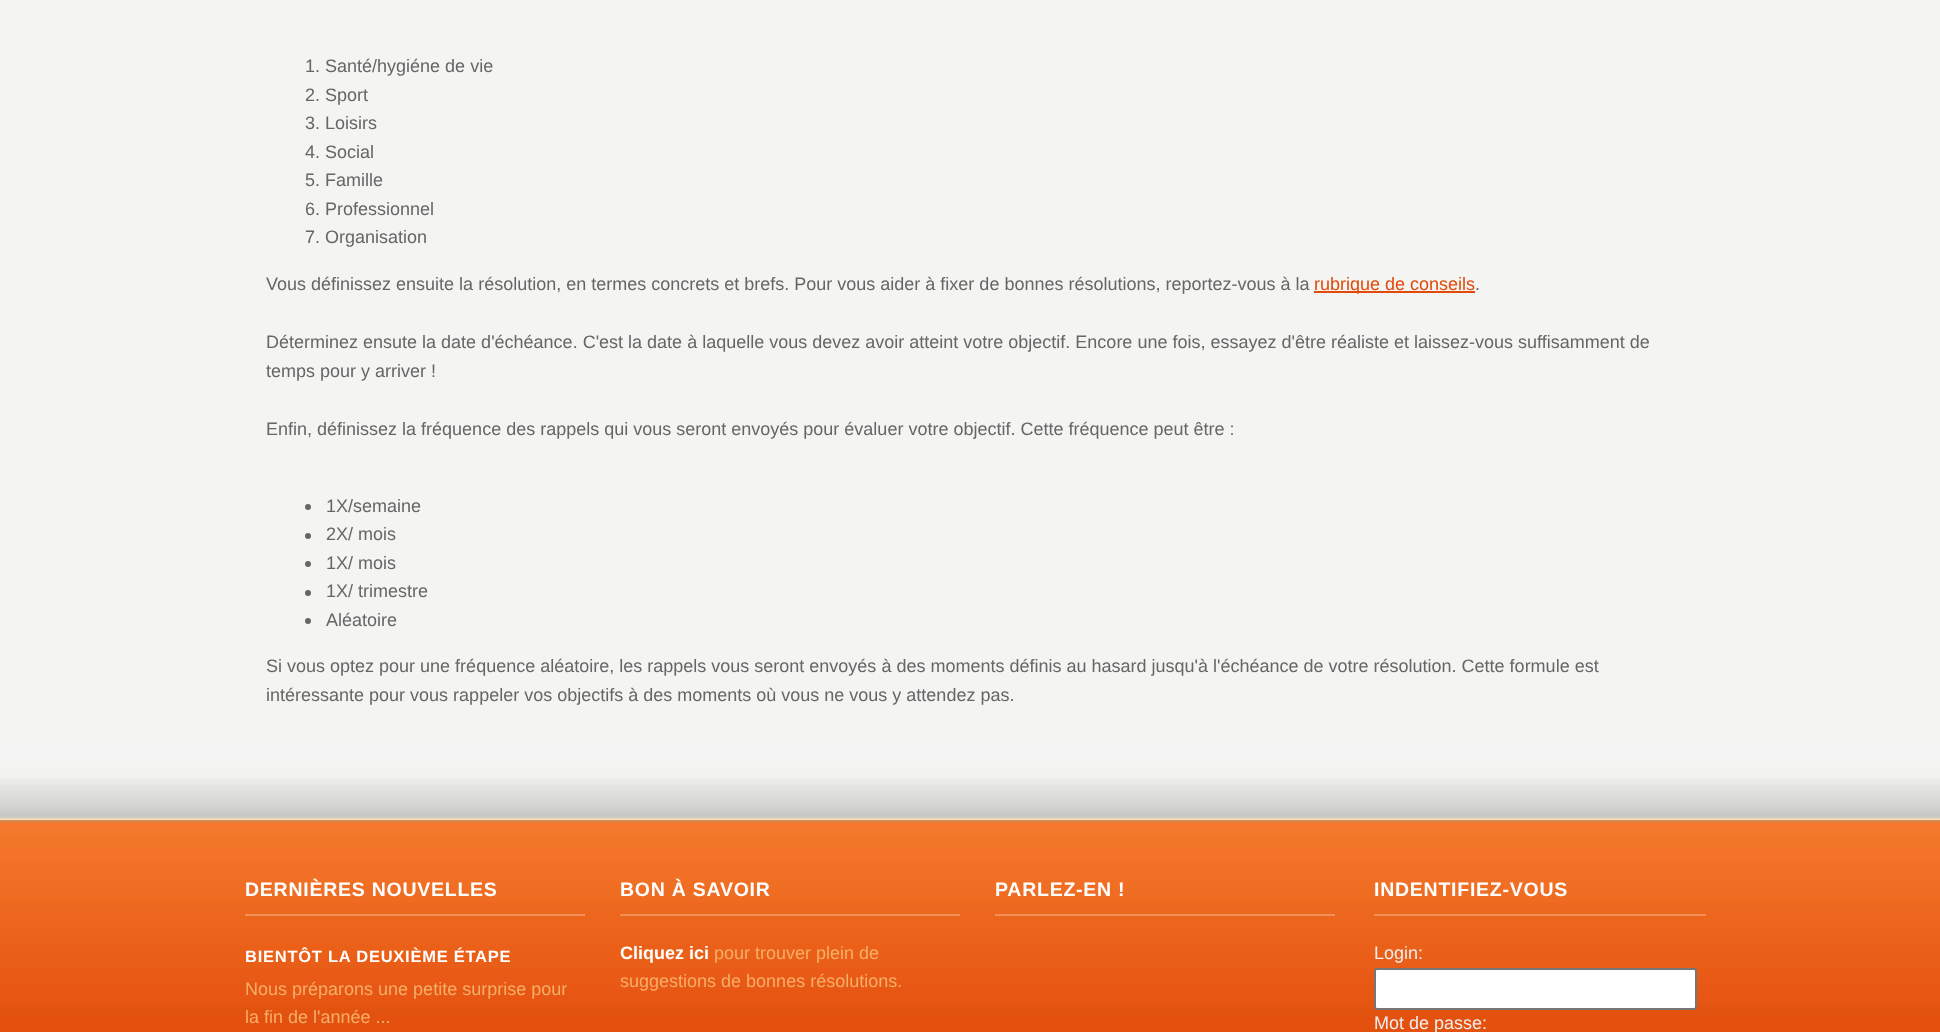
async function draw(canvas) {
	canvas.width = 1940;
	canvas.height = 1032;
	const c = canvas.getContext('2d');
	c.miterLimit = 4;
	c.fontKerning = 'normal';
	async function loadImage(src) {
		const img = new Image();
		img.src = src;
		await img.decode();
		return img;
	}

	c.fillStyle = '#f4f4f2';
	c.fillRect(0, 0, 1940, 1032);
	c.font = '18px Liberation Sans';
	c.fillStyle = '#666';
	for (const [text, x, y] of [
		['1. Santé/hygiéne de vie', 305, 72],
		['2. Sport', 305, 101],
		['3. Loisirs', 305, 129],
		['4. Social', 305, 158],
		['5. Famille', 305, 186],
		['6. Professionnel', 305, 215],
		['7. Organisation', 305, 243],
		['Vous définissez ensuite la résolution, en termes concrets et brefs. Pour vous aider à fixer de bonnes résolutions, reportez-vous à la', 266, 290],
	]) {
		c.fillText(text, x, y);
	}
	c.fillStyle = '#e14a0a';
	c.fillRect(1314, 291, 161, 2);
	c.fillText('rubrique de conseils', 1314, 290);
	c.fillStyle = '#666';
	for (const [text, x, y] of [
		['.', 1475, 290],
		['Déterminez ensute la date d\'échéance. C\'est la date à laquelle vous devez avoir atteint votre objectif. Encore une fois, essayez d\'être réaliste et laissez-vous suffisamment de', 266, 348],
		['temps pour y arriver !', 266, 377],
		['Enfin, définissez la fréquence des rappels qui vous seront envoyés pour évaluer votre objectif. Cette fréquence peut être :', 266, 435],
	]) {
		c.fillText(text, x, y);
	}
	c.beginPath();
	c.arc(308, 507, 3, 0, 2 * Math.PI);
	c.fill();
	c.fillText('1X/semaine', 326, 512);
	c.beginPath();
	c.arc(308, 536, 3, 0, 2 * Math.PI);
	c.fill();
	c.fillText('2X/ mois', 326, 540);
	c.beginPath();
	c.arc(308, 564, 3, 0, 2 * Math.PI);
	c.fill();
	c.fillText('1X/ mois', 326, 569);
	c.beginPath();
	c.arc(308, 593, 3, 0, 2 * Math.PI);
	c.fill();
	c.fillText('1X/ trimestre', 326, 597);
	c.beginPath();
	c.arc(308, 621, 3, 0, 2 * Math.PI);
	c.fill();
	for (const [text, x, y] of [
		['Aléatoire', 326, 626],
		['Si vous optez pour une fréquence aléatoire, les rappels vous seront envoyés à des moments définis au hasard jusqu\'à l\'échéance de votre résolution. Cette formule est', 266, 672],
		['intéressante pour vous rappeler vos objectifs à des moments où vous ne vous y attendez pas.', 266, 701],
	]) {
		c.fillText(text, x, y);
	}
	c.drawImage(await loadImage('img1.png'), 0, 747, 1940, 285);
	c.fillStyle = '#f28f59';
	c.fillRect(245, 914, 340, 2);
	c.letterSpacing = '0.75px';
	c.font = 'bold 19.5px Liberation Sans';
	c.fillStyle = '#fff';
	c.fillText('DERNIÈRES NOUVELLES', 245, 896);
	c.font = 'bold 16.5px Liberation Sans';
	c.fillText('BIENTÔT LA DEUXIÈME ÉTAPE', 245, 962);
	c.letterSpacing = '0px';
	c.font = '18px Liberation Sans';
	c.fillStyle = '#f6ae68';
	c.fillText('Nous préparons une petite surprise pour', 245, 995);
	c.fillText('la fin de l\'année ...', 245, 1023);
	c.fillStyle = '#f28f59';
	c.fillRect(620, 914, 340, 2);
	c.letterSpacing = '0.75px';
	c.font = 'bold 19.5px Liberation Sans';
	c.fillStyle = '#fff';
	c.fillText('BON À SAVOIR', 620, 896);
	c.letterSpacing = '0px';
	c.font = 'bold 18px Liberation Sans';
	c.fillText('Cliquez ici', 620, 959);
	c.font = '18px Liberation Sans';
	c.fillStyle = '#f6ae68';
	c.fillText('pour trouver plein de', 714, 959);
	c.fillText('suggestions de bonnes résolutions.', 620, 987);
	c.fillStyle = '#f28f59';
	c.fillRect(995, 914, 340, 2);
	c.letterSpacing = '0.75px';
	c.font = 'bold 19.5px Liberation Sans';
	c.fillStyle = '#fff';
	c.fillText('PARLEZ-EN !', 995, 896);
	c.fillStyle = '#f28f59';
	c.fillRect(1374, 914, 332, 2);
	c.fillStyle = '#fff';
	c.fillText('INDENTIFIEZ-VOUS', 1374, 896);
	c.letterSpacing = '0px';
	c.font = '18px Liberation Sans';
	c.fillStyle = '#eee';
	c.fillText('Login:', 1374, 959);
	c.fillStyle = '#fff';
	c.beginPath();
	c.roundRect(1375, 969, 321, 40, 2);
	c.fill();
	c.strokeStyle = '#767676';
	c.lineWidth = 2;
	c.stroke();
	c.fillStyle = '#eee';
	c.fillText('Mot de passe:', 1374, 1029);
}

draw(document.querySelector('canvas'));
